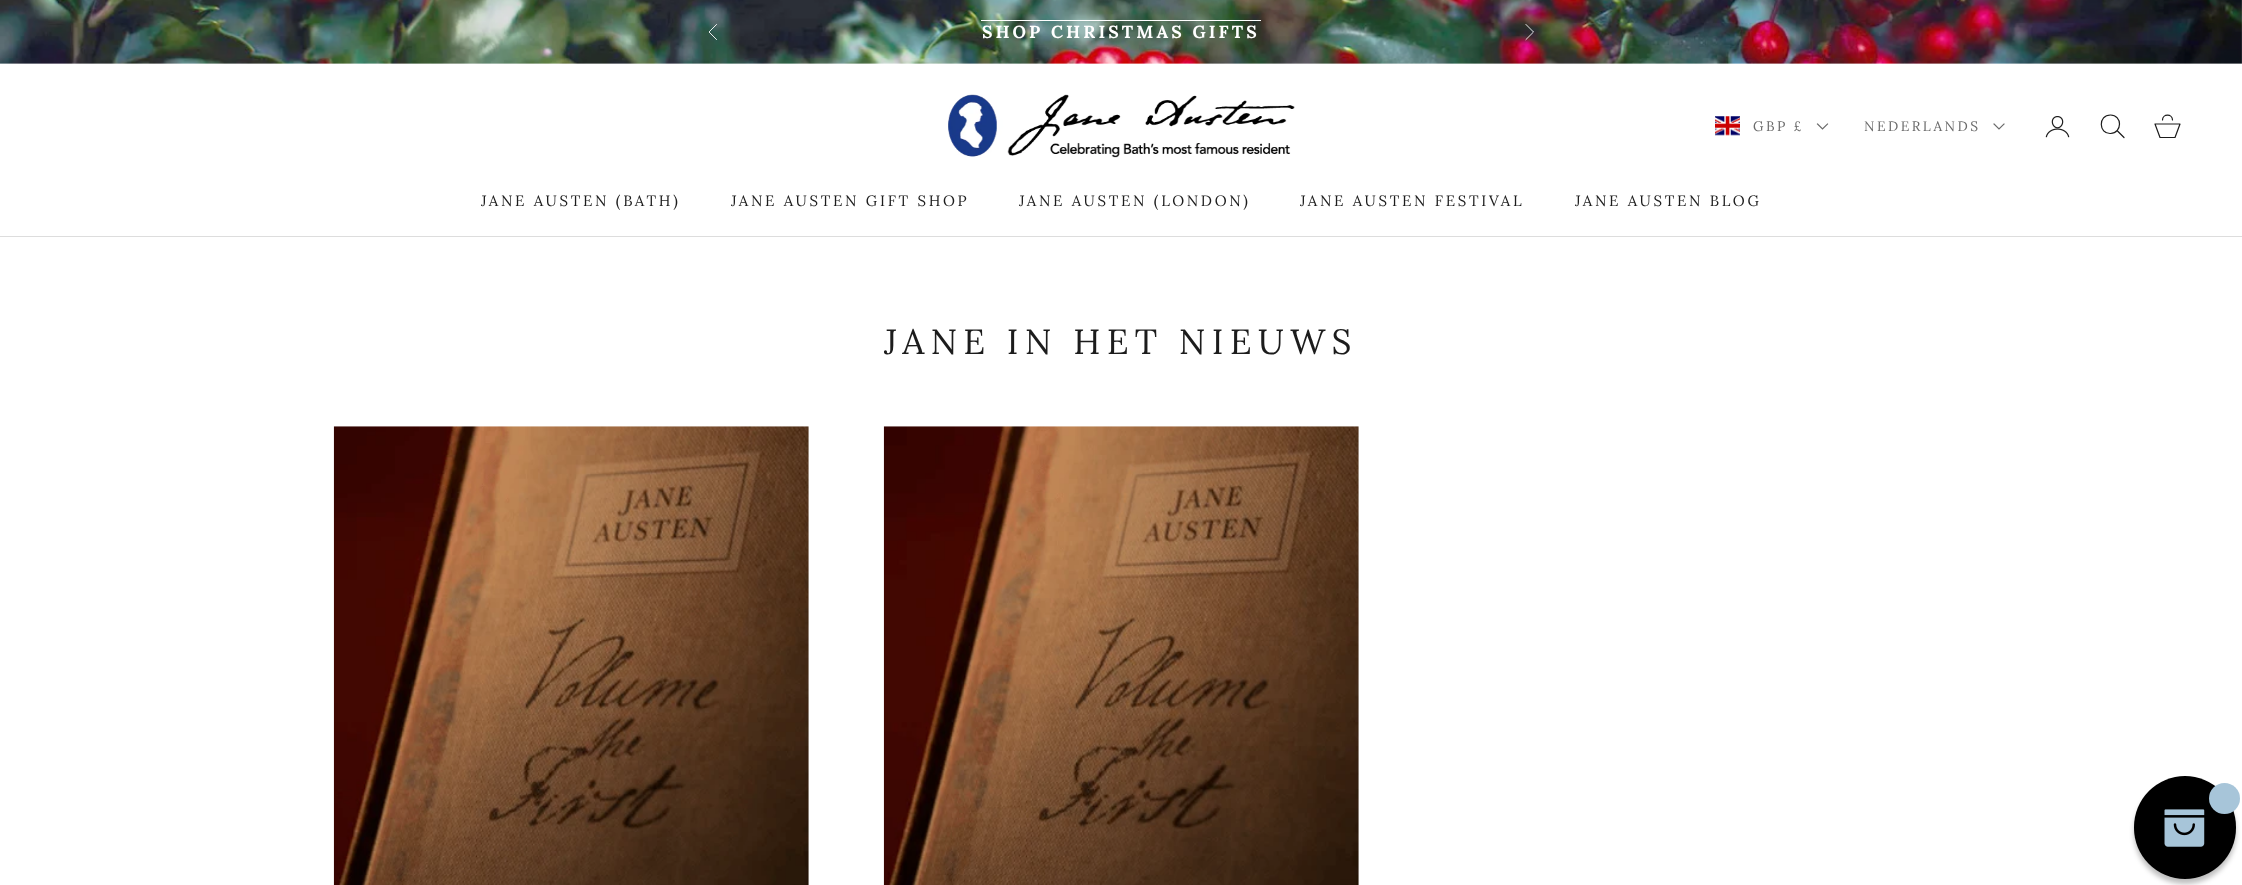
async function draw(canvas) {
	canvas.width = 2242;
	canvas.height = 885;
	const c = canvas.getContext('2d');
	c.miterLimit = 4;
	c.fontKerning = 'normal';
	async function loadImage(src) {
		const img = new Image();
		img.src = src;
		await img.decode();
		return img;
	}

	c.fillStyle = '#fff';
	c.fillRect(0, 0, 2242, 885);
	c.drawImage(await loadImage('img1.png'), 0, 0, 2242, 64);
	c.beginPath();
	c.moveTo(716.5, 24.5);
	c.lineTo(709, 32);
	c.lineTo(716.5, 39.5);
	c.strokeStyle = '#fff';
	c.lineWidth = 0.9;
	c.lineCap = 'square';
	c.stroke();
	c.letterSpacing = '3.1px';
	c.font = 'bold 17.5px Lora';
	c.fillText('SHOP CHRISTMAS GIFTS', 982, 38);
	c.fillRect(981, 20, 280, 1);
	c.beginPath();
	c.moveTo(1526, 39.5);
	c.lineTo(1533.5, 32);
	c.lineTo(1526, 24.5);
	c.stroke();
	c.fillStyle = '#ddd';
	c.fillRect(0, 236, 2242, 1);
	c.drawImage(await loadImage('img2.png'), 948, 94, 347, 64);
	c.drawImage(await loadImage('img3.png'), 1715, 116, 25, 20);
	c.letterSpacing = '2.5px';
	c.font = '13.75px Lora';
	c.fillStyle = '#6b6b6b';
	c.fillText('GBP £', 1753, 131);
	c.beginPath();
	c.moveTo(1817.5, 124);
	c.lineTo(1822.5, 129);
	c.lineTo(1827.5, 124);
	c.strokeStyle = '#6b6b6b';
	c.lineWidth = 1.2;
	c.stroke();
	c.fillText('NEDERLANDS', 1864, 131);
	c.beginPath();
	c.moveTo(1994, 124);
	c.lineTo(1999, 129);
	c.lineTo(2004, 124);
	c.stroke();
	c.drawImage(await loadImage('img4.png'), 2045, 116, 25, 22);
	c.beginPath();
	c.moveTo(2110.5, 115);
	c.bezierCurveTo(2098, 115, 2098.5, 134, 2110.5, 133.5);
	c.bezierCurveTo(2122.5, 133, 2122.5, 115, 2110.5, 115);
	c.closePath();
	c.strokeStyle = '#1c1c1c';
	c.lineCap = 'butt';
	c.stroke();
	c.beginPath();
	c.moveTo(2117.5, 131);
	c.lineTo(2124, 137.5);
	c.lineCap = 'round';
	c.stroke();
	c.beginPath();
	c.moveTo(2155, 124);
	c.lineTo(2180, 124);
	c.lineTo(2175, 137.5);
	c.lineTo(2160, 137.5);
	c.closePath();
	c.moveTo(2172.5, 120);
	c.bezierCurveTo(2172.5, 113.5, 2162.5, 113.5, 2162.5, 120);
	c.lineJoin = 'round';
	c.stroke();
	c.letterSpacing = '2.7px';
	c.font = '15px Lora';
	c.fillStyle = '#1c1c1c';
	for (const [text, x, y] of [
		['JANE AUSTEN (BATH)', 481, 206],
		['JANE AUSTEN GIFT SHOP', 731, 206],
		['JANE AUSTEN (LONDON)', 1019, 206],
		['JANE AUSTEN FESTIVAL', 1300, 206],
		['JANE AUSTEN BLOG', 1575, 206],
	]) {
		c.fillText(text, x, y);
	}
	c.letterSpacing = '6.25px';
	c.font = '35px Lora';
	c.fillText('JANE IN HET NIEUWS', 884, 354);
	c.drawImage(await loadImage('img5.png'), 333, 426, 476, 459);
	c.drawImage(await loadImage('img6.png'), 883, 426, 476, 459);
	c.fillStyle = '#00000040';
	c.filter = 'blur(2.5px)';
	c.beginPath();
	c.roundRect(2134, 781, 102, 103, 51);
	c.fill();
	c.filter = 'none';
	c.fillStyle = '#000';
	c.beginPath();
	c.roundRect(2134, 776, 102, 103, 51);
	c.fill();
	c.fillStyle = '#a7c5d9';
	c.beginPath();
	c.arc(2224.5, 798.5, 15.5, 0, 2 * Math.PI);
	c.fill();
	c.drawImage(await loadImage('img7.png'), 2164, 809, 41, 38);
}

draw(document.querySelector('canvas'));
